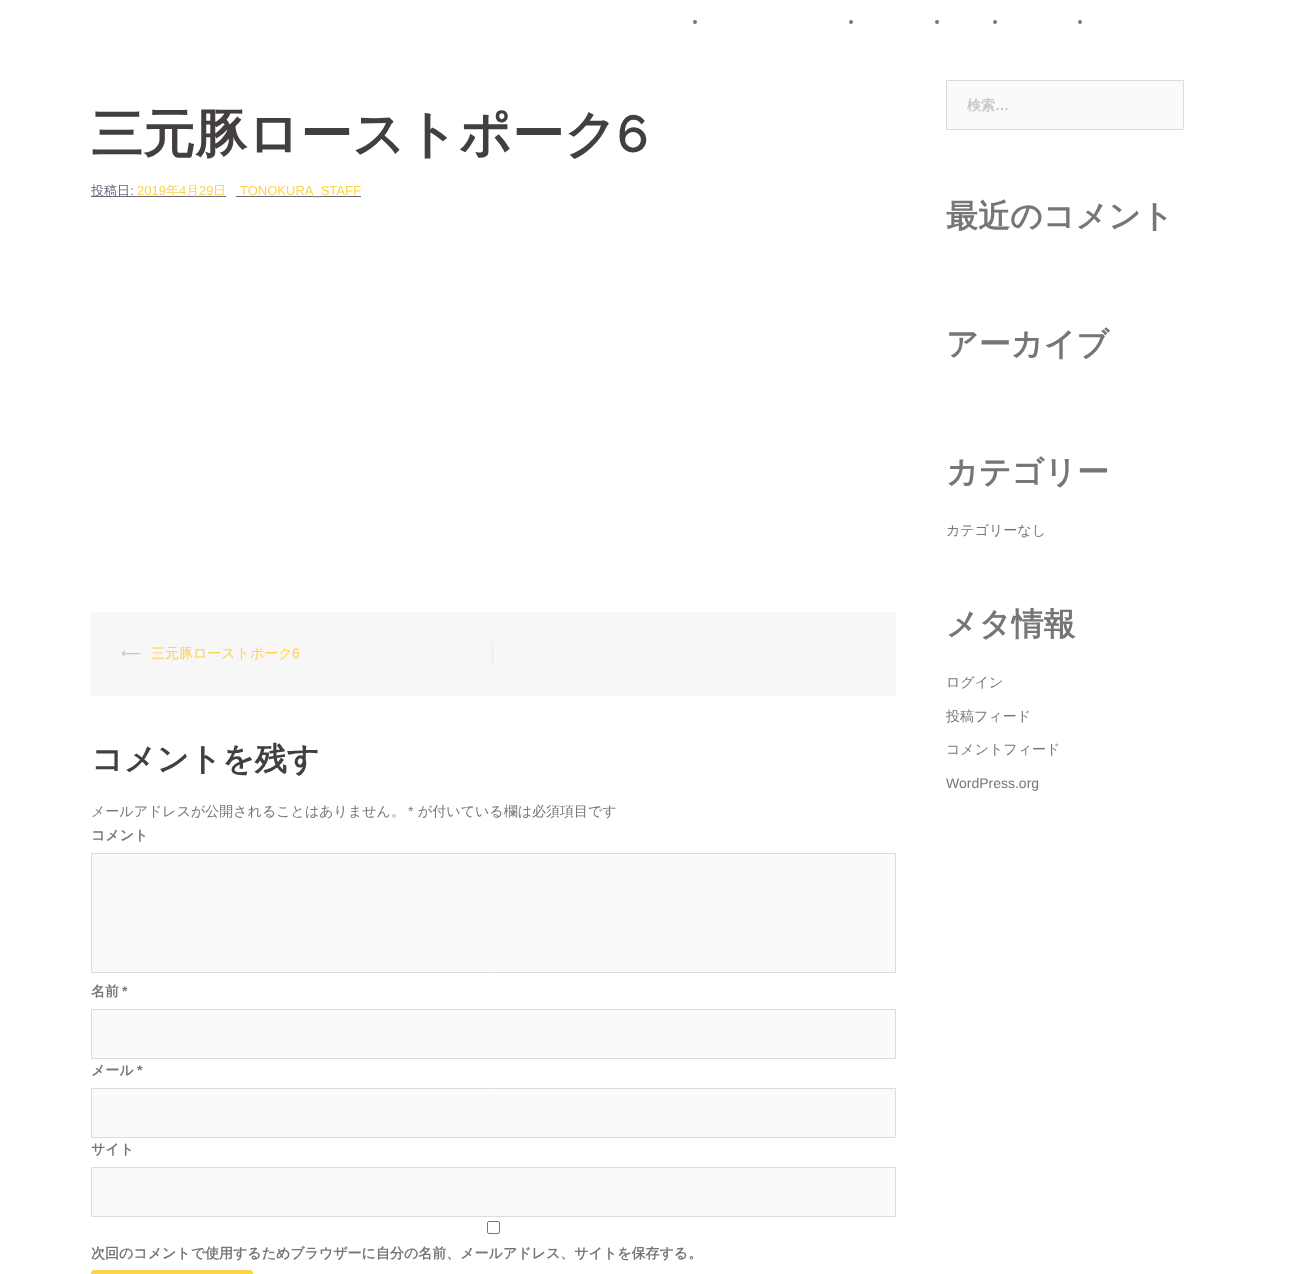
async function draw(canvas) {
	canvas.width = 1291;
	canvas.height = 1274;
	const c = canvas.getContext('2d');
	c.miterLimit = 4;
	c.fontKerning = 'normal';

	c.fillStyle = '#fff';
	c.fillRect(0, 0, 1291, 1274);
	c.fillStyle = '#767676';
	c.beginPath();
	c.arc(695, 22, 2, 0, 2 * Math.PI);
	c.fill();
	c.beginPath();
	c.arc(851, 22, 2, 0, 2 * Math.PI);
	c.fill();
	c.beginPath();
	c.arc(937, 22, 2, 0, 2 * Math.PI);
	c.fill();
	c.beginPath();
	c.arc(995, 22, 2, 0, 2 * Math.PI);
	c.fill();
	c.beginPath();
	c.arc(1080, 22, 2, 0, 2 * Math.PI);
	c.fill();
	c.font = 'bold 52px WenQuanYi Zen Hei';
	c.fillStyle = '#443f3f';
	c.fillText('三元豚ローストポーク', 91, 152);
	c.font = '600 52px Raleway';
	c.fillText('6', 617, 152);
	c.fillStyle = '#68647a';
	c.fillRect(91, 196, 135, 1);
	c.font = '500 13px WenQuanYi Zen Hei';
	c.fillText('投稿日', 91, 195);
	c.font = '13px Liberation Sans';
	c.fillText(':', 130, 195);
	c.fillStyle = '#ffd247';
	c.fillText('2019', 137, 195);
	c.font = '500 13px WenQuanYi Zen Hei';
	c.fillText('年', 166, 195);
	c.font = '13px Liberation Sans';
	c.fillText('4', 179, 195);
	c.font = '500 13px WenQuanYi Zen Hei';
	c.fillText('月', 186, 195);
	c.font = '13px Liberation Sans';
	c.fillText('29', 199, 195);
	c.font = '500 13px WenQuanYi Zen Hei';
	c.fillText('日', 213, 195);
	c.fillStyle = '#68647a';
	c.fillRect(236, 196, 125, 1);
	c.font = '13px Liberation Sans';
	c.fillStyle = '#ffd247';
	c.fillText('TONOKURA_STAFF', 240, 195);
	c.fillStyle = '#f7f7f7';
	c.fillRect(91, 612, 805, 84);
	c.fillStyle = '#ebebeb';
	c.fillRect(492, 642, 1, 24);
	c.font = '14px DejaVu Sans';
	c.fillStyle = '#c7c7c7';
	c.fillText('⟵', 121, 658);
	c.font = '500 14px WenQuanYi Zen Hei';
	c.fillStyle = '#ffd247';
	c.fillText('三元豚ローストポーク', 151, 658);
	c.font = '14px Liberation Sans';
	c.fillText('6', 292, 658);
	c.font = 'bold 32px WenQuanYi Zen Hei';
	c.fillStyle = '#443f3f';
	c.fillText('コメントを残す', 91, 770);
	c.font = '500 14px WenQuanYi Zen Hei';
	c.fillStyle = '#767676';
	c.fillText('メールアドレスが公開されることはありません。', 91, 816);
	c.font = '14px Liberation Sans';
	c.fillText('*', 408, 816);
	c.font = '500 14px WenQuanYi Zen Hei';
	c.fillText('が付いている欄は必須項目です', 418, 816);
	c.font = 'bold 14px WenQuanYi Zen Hei';
	c.fillText('コメント', 91, 840);
	c.fillStyle = '#fafafa';
	c.beginPath();
	c.rect(91.5, 853.5, 804, 119);
	c.fill();
	c.strokeStyle = '#dbdbdb';
	c.stroke();
	c.fillStyle = '#767676';
	c.fillText('名前', 91, 996);
	c.font = 'bold 14px Liberation Sans';
	c.fillText('*', 122, 996);
	c.fillStyle = '#fafafa';
	c.beginPath();
	c.rect(91.5, 1009.5, 804, 49);
	c.fill();
	c.stroke();
	c.font = 'bold 14px WenQuanYi Zen Hei';
	c.fillStyle = '#767676';
	c.fillText('メール', 91, 1075);
	c.font = 'bold 14px Liberation Sans';
	c.fillText('*', 137, 1075);
	c.fillStyle = '#fafafa';
	c.beginPath();
	c.rect(91.5, 1088.5, 804, 49);
	c.fill();
	c.stroke();
	c.font = 'bold 14px WenQuanYi Zen Hei';
	c.fillStyle = '#767676';
	c.fillText('サイト', 91, 1154);
	c.fillStyle = '#fafafa';
	c.beginPath();
	c.rect(91.5, 1167.5, 804, 49);
	c.fill();
	c.stroke();
	c.beginPath();
	c.roundRect(487.5, 1221.5, 12, 12, 1.5);
	c.strokeStyle = '#767676';
	c.stroke();
	c.fillStyle = '#767676';
	c.fillText('次回のコメントで使用するためブラウザーに自分の名前、メールアドレス、サイトを保存する。', 91, 1258);
	c.fillStyle = '#ffd247';
	c.beginPath();
	c.roundRect(91.5, 1270.5, 161, 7, 2.5);
	c.fill();
	c.strokeStyle = '#ffd247';
	c.stroke();
	c.fillStyle = '#fafafa';
	c.beginPath();
	c.rect(946.5, 80.5, 237, 49);
	c.fill();
	c.strokeStyle = '#dbdbdb';
	c.stroke();
	c.fillStyle = '#c7c7c7';
	c.fillText('検索', 967, 110);
	c.font = 'bold 14px Liberation Sans';
	c.fillText('…', 995, 110);
	c.font = 'bold 32px WenQuanYi Zen Hei';
	c.fillStyle = '#767676';
	for (const [text, x, y] of [
		['最近のコメント', 946, 227],
		['アーカイブ', 946, 355],
		['カテゴリー', 946, 483],
	]) {
		c.fillText(text, x, y);
	}
	c.font = '500 14px WenQuanYi Zen Hei';
	c.fillText('カテゴリーなし', 946, 535);
	c.font = 'bold 32px WenQuanYi Zen Hei';
	c.fillText('メタ情報', 946, 635);
	c.font = '500 14px WenQuanYi Zen Hei';
	for (const [text, x, y] of [
		['ログイン', 946, 687],
		['投稿フィード', 946, 721],
		['コメントフィード', 946, 754],
	]) {
		c.fillText(text, x, y);
	}
	c.font = '14px Liberation Sans';
	c.fillText('WordPress.org', 946, 788);
}

draw(document.querySelector('canvas'));
